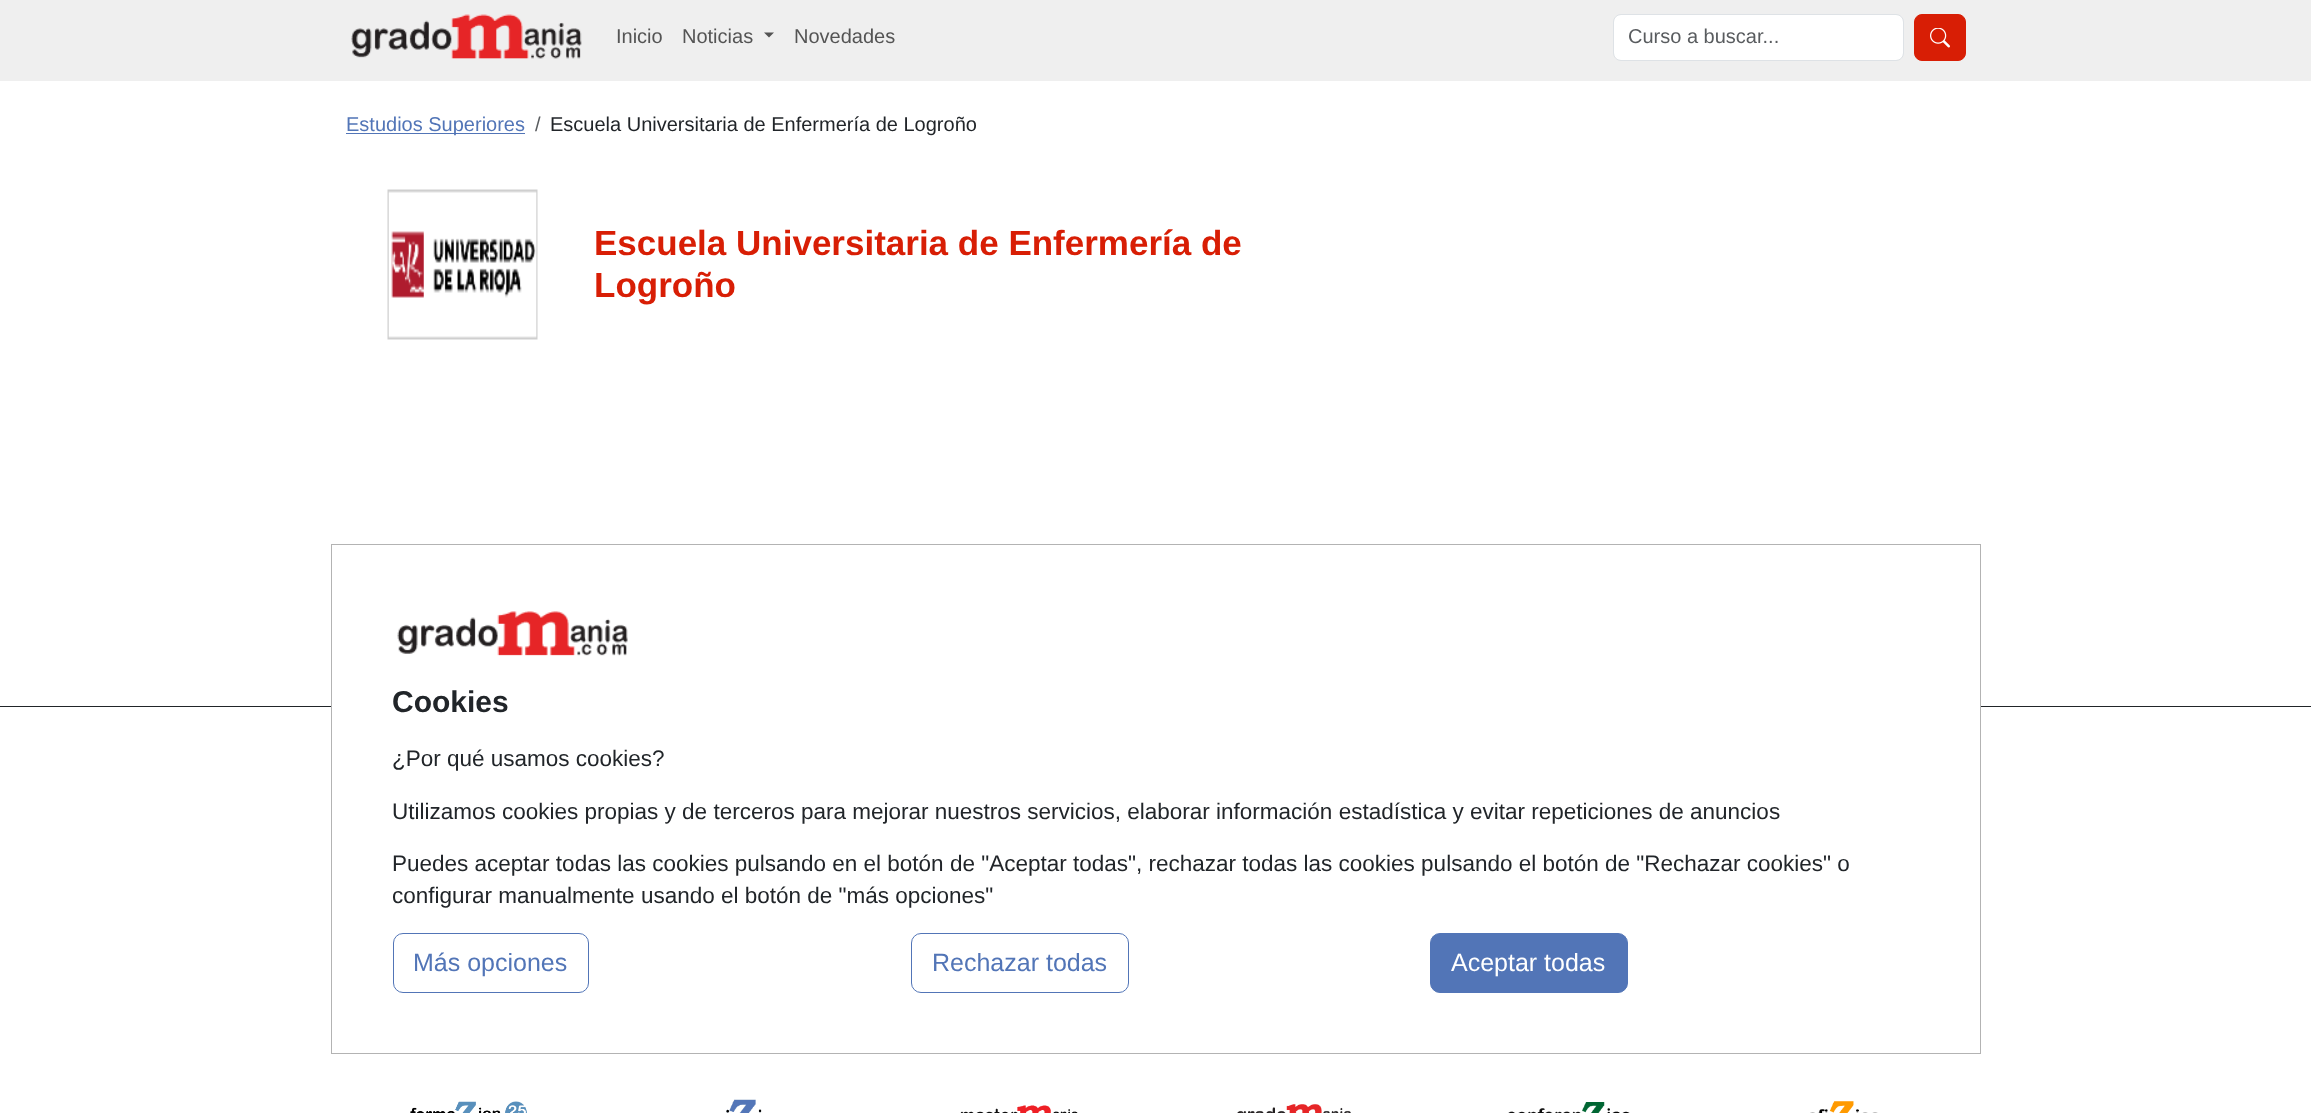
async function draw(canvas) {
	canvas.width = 2311;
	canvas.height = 1113;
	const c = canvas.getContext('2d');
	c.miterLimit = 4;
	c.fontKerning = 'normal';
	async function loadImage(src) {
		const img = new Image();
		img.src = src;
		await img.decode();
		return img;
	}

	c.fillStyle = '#fff';
	c.fillRect(0, 0, 2311, 1113);
	c.fillStyle = '#efefef';
	c.fillRect(0, 0, 2311, 81);
	c.drawImage(await loadImage('img1.png'), 351, 14, 231, 45);
	c.font = '20px Liberation Sans';
	c.fillStyle = '#545454';
	c.fillText('Inicio', 616, 43);
	c.fillText('Noticias', 682, 43);
	c.beginPath();
	c.moveTo(764, 32.5);
	c.lineTo(774, 32.5);
	c.lineTo(769, 37.5);
	c.closePath();
	c.fill();
	c.fillText('Novedades', 794, 43);
	c.fillStyle = '#fff';
	c.beginPath();
	c.roundRect(1614, 15, 289, 45, 6);
	c.fill();
	c.beginPath();
	c.roundRect(1613.5, 14.5, 290, 46, 7.5);
	c.strokeStyle = '#dee2e6';
	c.stroke();
	c.fillStyle = '#595c5f';
	c.fillText('Curso a buscar...', 1628, 43);
	c.fillStyle = '#d81e05';
	c.beginPath();
	c.roundRect(1914.5, 14.5, 51, 46, 7.5);
	c.fill();
	c.strokeStyle = '#d81e05';
	c.stroke();
	c.drawImage(await loadImage('img2.png'), 1930, 28, 20, 20);
	c.fillStyle = '#5275b7';
	c.fillRect(346, 133, 179, 1);
	c.fillText('Estudios Superiores', 346, 131);
	c.fillStyle = '#595c5f';
	c.fillText('/', 535, 131);
	c.fillStyle = '#212529';
	c.fillText('Escuela Universitaria de Enfermería de Logroño', 550, 131);
	c.drawImage(await loadImage('img3.png'), 387, 189, 151, 151);
	c.font = 'bold 35px Liberation Sans';
	c.fillStyle = '#d81e05';
	c.fillText('Escuela Universitaria de Enfermería de', 594, 255);
	c.fillText('Logroño', 594, 297);
	c.fillStyle = '#212529';
	c.fillRect(0, 706, 2311, 1);
	c.fillStyle = '#fff';
	c.fillRect(332, 706, 1648, 1);
	c.strokeStyle = '#b3b3b3';
	c.strokeRect(331.5, 544.5, 1649, 509);
	c.drawImage(await loadImage('img4.png'), 397, 611, 231, 45);
	c.font = 'bold 30px Liberation Sans';
	c.fillStyle = '#212529';
	c.fillText('Cookies', 392, 712);
	c.font = '22.5px Liberation Sans';
	for (const [text, x, y] of [
		['¿Por qué usamos cookies?', 392, 766],
		['Utilizamos cookies propias y de terceros para mejorar nuestros servicios, elaborar información estadística y evitar repeticiones de anuncios', 392, 819],
		['Puedes aceptar todas las cookies pulsando en el botón de "Aceptar todas", rechazar todas las cookies pulsando el botón de "Rechazar cookies" o', 392, 871],
		['configurar manualmente usando el botón de "más opciones"', 392, 903],
	]) {
		c.fillText(text, x, y);
	}
	c.beginPath();
	c.roundRect(393.5, 933.5, 195, 59, 9.5);
	c.strokeStyle = '#5275b7';
	c.stroke();
	c.font = '25px Liberation Sans';
	c.fillStyle = '#5275b7';
	c.fillText('Más opciones', 413, 971);
	c.beginPath();
	c.roundRect(911.5, 933.5, 217, 59, 9.5);
	c.stroke();
	c.fillText('Rechazar todas', 932, 971);
	c.beginPath();
	c.roundRect(1430.5, 933.5, 197, 59, 9.5);
	c.fill();
	c.stroke();
	c.fillStyle = '#fff';
	c.fillText('Aceptar todas', 1451, 971);
	c.drawImage(await loadImage('img5.png'), 410, 1101, 117, 12);
	c.drawImage(await loadImage('img6.png'), 726, 1099, 36, 14);
	c.drawImage(await loadImage('img7.png'), 960, 1105, 118, 8);
	c.drawImage(await loadImage('img8.png'), 1237, 1104, 114, 9);
	c.drawImage(await loadImage('img9.png'), 1508, 1102, 122, 11);
	c.drawImage(await loadImage('img10.png'), 1810, 1101, 68, 12);
}

draw(document.querySelector('canvas'));
